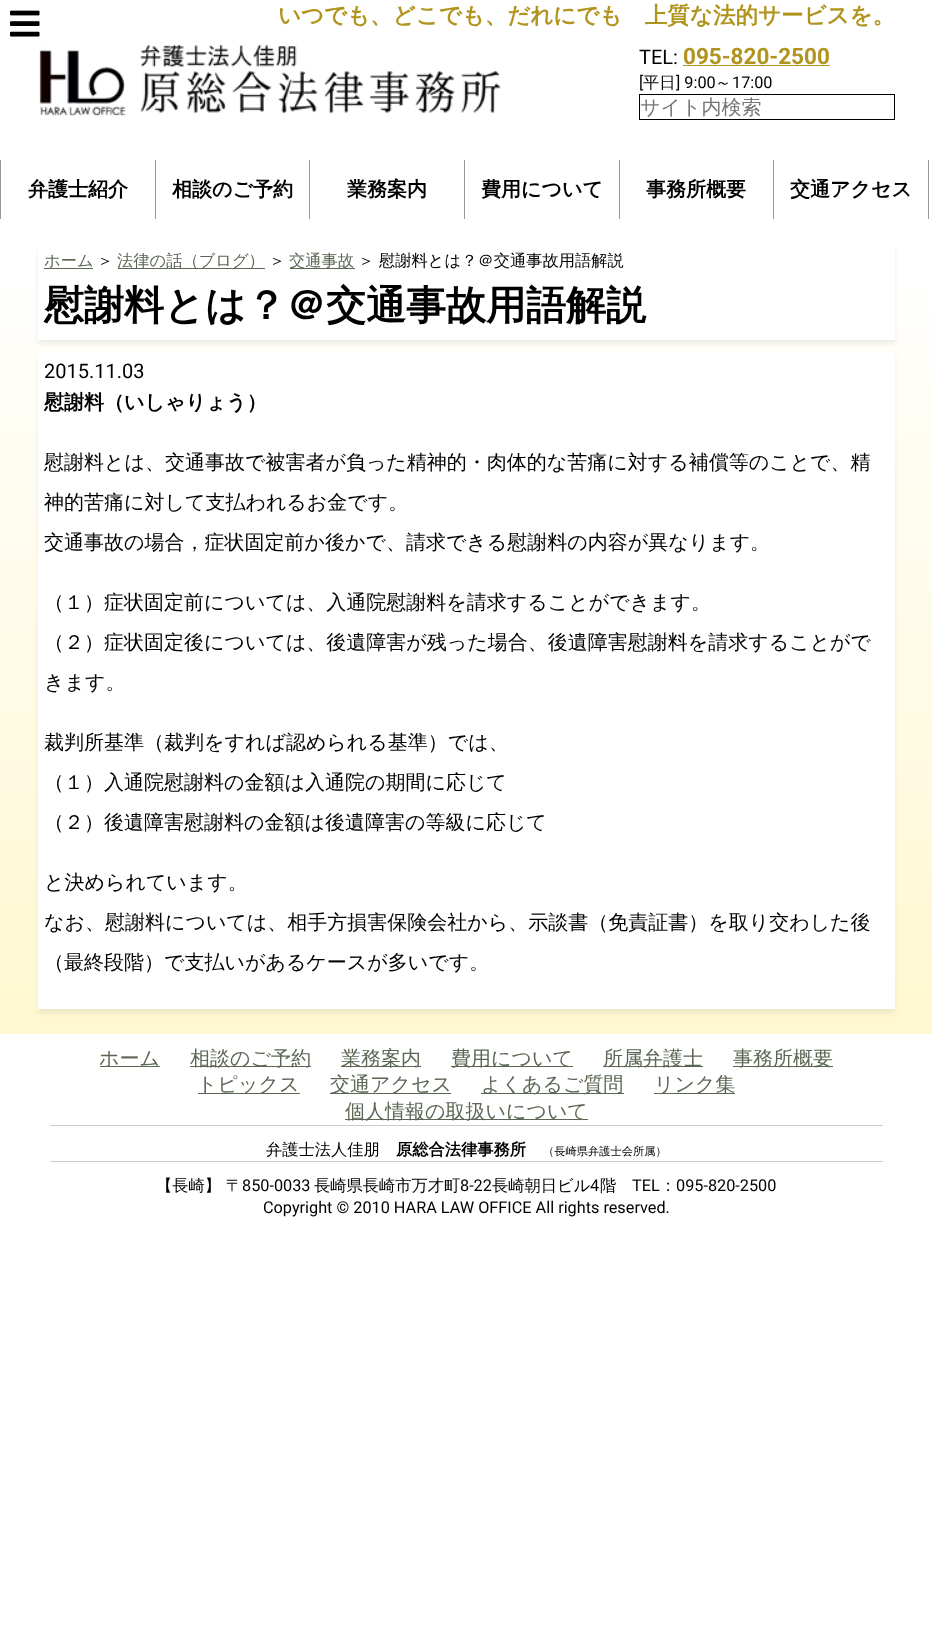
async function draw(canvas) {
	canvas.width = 932;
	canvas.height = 1630;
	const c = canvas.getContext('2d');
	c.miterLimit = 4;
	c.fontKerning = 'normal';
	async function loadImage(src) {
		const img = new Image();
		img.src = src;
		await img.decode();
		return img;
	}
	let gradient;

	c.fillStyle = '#fff';
	c.fillRect(0, 0, 932, 1630);
	c.drawImage(await loadImage('img1.png'), 10, 10, 30, 27);
	c.font = 'bold 22.5px WenQuanYi Zen Hei';
	c.fillStyle = '#b0941e';
	c.fillText('いつでも、どこでも、だれにでも　上質な法的サービスを。', 278, 23);
	c.drawImage(await loadImage('img2.png'), 39, 44, 462, 72);
	c.font = '20px Roboto';
	c.fillStyle = '#000';
	c.fillText('TEL:', 639, 64);
	c.font = 'bold 22.5px Roboto';
	c.fillStyle = '#b0941e';
	c.fillText('095-820-2500', 683, 64);
	c.fillRect(683, 65, 147, 1);
	c.font = '16.25px Roboto';
	c.fillStyle = '#000';
	c.fillText('[', 639, 88);
	c.font = '500 16.25px WenQuanYi Zen Hei';
	c.fillText('平日', 643, 88);
	c.font = '16.25px Roboto';
	c.fillText('] 9:00', 676, 88);
	c.font = '500 16.25px WenQuanYi Zen Hei';
	c.fillText('～', 715, 88);
	c.font = '16.25px Roboto';
	c.fillText('17:00', 732, 88);
	c.strokeStyle = '#000';
	c.strokeRect(639.5, 94.5, 255, 25);
	c.font = '500 20px WenQuanYi Zen Hei';
	c.fillStyle = '#757575';
	c.fillText('サイト内検索', 640, 114);
	c.fillStyle = '#999';
	c.fillRect(0, 160, 1, 59);
	c.fillRect(155, 160, 1, 59);
	c.font = 'bold 20px WenQuanYi Zen Hei';
	c.fillStyle = '#000';
	c.fillText('弁護士紹介', 28, 196);
	c.fillStyle = '#999';
	c.fillRect(309, 160, 1, 59);
	c.fillStyle = '#000';
	c.fillText('相談のご予約', 172, 196);
	c.fillStyle = '#999';
	c.fillRect(464, 160, 1, 59);
	c.fillStyle = '#000';
	c.fillText('業務案内', 347, 196);
	c.fillStyle = '#999';
	c.fillRect(619, 160, 1, 59);
	c.fillStyle = '#000';
	c.fillText('費用について', 481, 196);
	c.fillStyle = '#999';
	c.fillRect(773, 160, 1, 59);
	c.fillStyle = '#000';
	c.fillText('事務所概要', 646, 196);
	c.fillStyle = '#999';
	c.fillRect(928, 160, 1, 59);
	c.fillStyle = '#000';
	c.fillText('交通アクセス', 790, 196);
	gradient = c.createLinearGradient(466, 244, 466, 1034);
	gradient.addColorStop(0, '#fff');
	gradient.addColorStop(1, '#fff8d1');
	c.fillStyle = gradient;
	c.fillRect(0, 287, 932, 747);
	c.fillStyle = '#00000012';
	c.filter = 'blur(2.5px)';
	c.beginPath();
	c.rect(38, 248, 857, 96);
	c.fill();
	c.filter = 'none';
	c.fillStyle = '#fff';
	c.fillRect(38, 245, 857, 95);
	c.font = '500 16.25px WenQuanYi Zen Hei';
	c.fillStyle = '#5b6654';
	c.fillText('ホーム', 44, 266);
	c.fillRect(44, 268, 49, 1);
	c.fillStyle = '#000';
	c.fillText('＞', 97, 266);
	c.fillStyle = '#5b6654';
	c.fillRect(118, 268, 147, 1);
	c.fillText('法律の話（ブログ）', 117, 266);
	c.fillStyle = '#000';
	c.fillText('＞', 269, 266);
	c.fillStyle = '#5b6654';
	c.fillRect(290, 268, 65, 1);
	c.fillText('交通事故', 289, 266);
	c.fillStyle = '#000';
	c.fillText('＞ 慰謝料とは？＠交通事故用語解説', 358, 266);
	c.font = 'bold 40px WenQuanYi Zen Hei';
	c.fillText('慰謝料とは？＠交通事故用語解説', 44, 319);
	c.fillStyle = '#00000012';
	c.filter = 'blur(2.5px)';
	c.beginPath();
	c.rect(38, 356, 857, 657);
	c.fill();
	c.filter = 'none';
	c.fillStyle = '#fff';
	c.fillRect(38, 353, 857, 656);
	c.font = '20px Roboto';
	c.fillStyle = '#000';
	c.fillText('2015.11.03', 44, 378);
	c.font = 'bold 20px WenQuanYi Zen Hei';
	c.fillText('慰謝料（いしゃりょう）', 44, 409);
	c.font = '500 20px WenQuanYi Zen Hei';
	for (const [text, x, y] of [
		['慰謝料とは、交通事故で被害者が負った精神的・肉体的な苦痛に対する補償等のことで、精', 44, 469],
		['神的苦痛に対して支払われるお金です。', 44, 509],
		['交通事故の場合，症状固定前か後かで、請求できる慰謝料の内容が異なります。', 44, 549],
		['（１）症状固定前については、入通院慰謝料を請求することができます。', 44, 609],
		['（２）症状固定後については、後遺障害が残った場合、後遺障害慰謝料を請求することがで', 44, 649],
		['きます。', 44, 689],
		['裁判所基準（裁判をすれば認められる基準）では、', 44, 749],
		['（１）入通院慰謝料の金額は入通院の期間に応じて', 44, 789],
		['（２）後遺障害慰謝料の金額は後遺障害の等級に応じて', 44, 829],
		['と決められています。', 44, 889],
		['なお、慰謝料については、相手方損害保険会社から、示談書（免責証書）を取り交わした後', 44, 929],
		['（最終段階）で支払いがあるケースが多いです。', 44, 969],
	]) {
		c.fillText(text, x, y);
	}
	c.fillStyle = '#ccc';
	c.fillRect(50, 1125, 833, 1);
	c.fillStyle = '#5b6654';
	c.fillRect(100, 1066, 60, 1);
	c.fillText('ホーム', 99, 1065);
	c.fillRect(190, 1066, 121, 1);
	c.fillText('相談のご予約', 190, 1065);
	c.fillRect(341, 1066, 80, 1);
	c.fillText('業務案内', 341, 1065);
	c.fillRect(451, 1066, 122, 1);
	c.fillText('費用について', 451, 1065);
	c.fillRect(603, 1066, 100, 1);
	c.fillText('所属弁護士', 603, 1065);
	c.fillRect(733, 1066, 100, 1);
	c.fillText('事務所概要', 733, 1065);
	c.fillRect(198, 1093, 102, 1);
	c.fillText('トピックス', 197, 1091);
	c.fillRect(330, 1093, 121, 1);
	c.fillText('交通アクセス', 330, 1091);
	c.fillRect(481, 1093, 143, 1);
	c.fillText('よくあるご質問', 481, 1091);
	c.fillRect(654, 1093, 81, 1);
	c.fillText('リンク集', 654, 1091);
	c.fillRect(345, 1119, 243, 1);
	c.fillText('個人情報の取扱いについて', 345, 1118);
	c.fillStyle = '#ccc';
	c.fillRect(50, 1161, 833, 1);
	c.font = '500 16.25px WenQuanYi Zen Hei';
	c.fillStyle = '#000';
	c.fillText('弁護士法人佳朋', 266, 1155);
	c.font = 'bold 16.25px WenQuanYi Zen Hei';
	c.fillText('原総合法律事務所', 396, 1155);
	c.font = '500 11.25px WenQuanYi Zen Hei';
	c.fillText('（長崎県弁護士会所属）', 543, 1155);
	c.font = '500 16.25px WenQuanYi Zen Hei';
	c.fillText('【長崎】 〒', 156, 1191);
	c.font = '16.25px Roboto';
	c.fillText('850-0033', 242, 1191);
	c.font = '500 16.25px WenQuanYi Zen Hei';
	c.fillText('長崎県長崎市万才町', 314, 1191);
	c.font = '16.25px Roboto';
	c.fillText('8-22', 460, 1191);
	c.font = '500 16.25px WenQuanYi Zen Hei';
	c.fillText('長崎朝日ビル', 492, 1191);
	c.font = '16.25px Roboto';
	c.fillText('4', 590, 1191);
	c.font = '500 16.25px WenQuanYi Zen Hei';
	c.fillText('階', 600, 1191);
	c.font = '16.25px Roboto';
	c.fillText('TEL', 632, 1191);
	c.font = '500 16.25px WenQuanYi Zen Hei';
	c.fillText('：', 660, 1191);
	c.font = '16.25px Roboto';
	c.fillText('095-820-2500', 676, 1191);
	c.fillText('Copyright © 2010 HARA LAW OFFICE All rights reserved.', 263, 1213);
}

draw(document.querySelector('canvas'));
